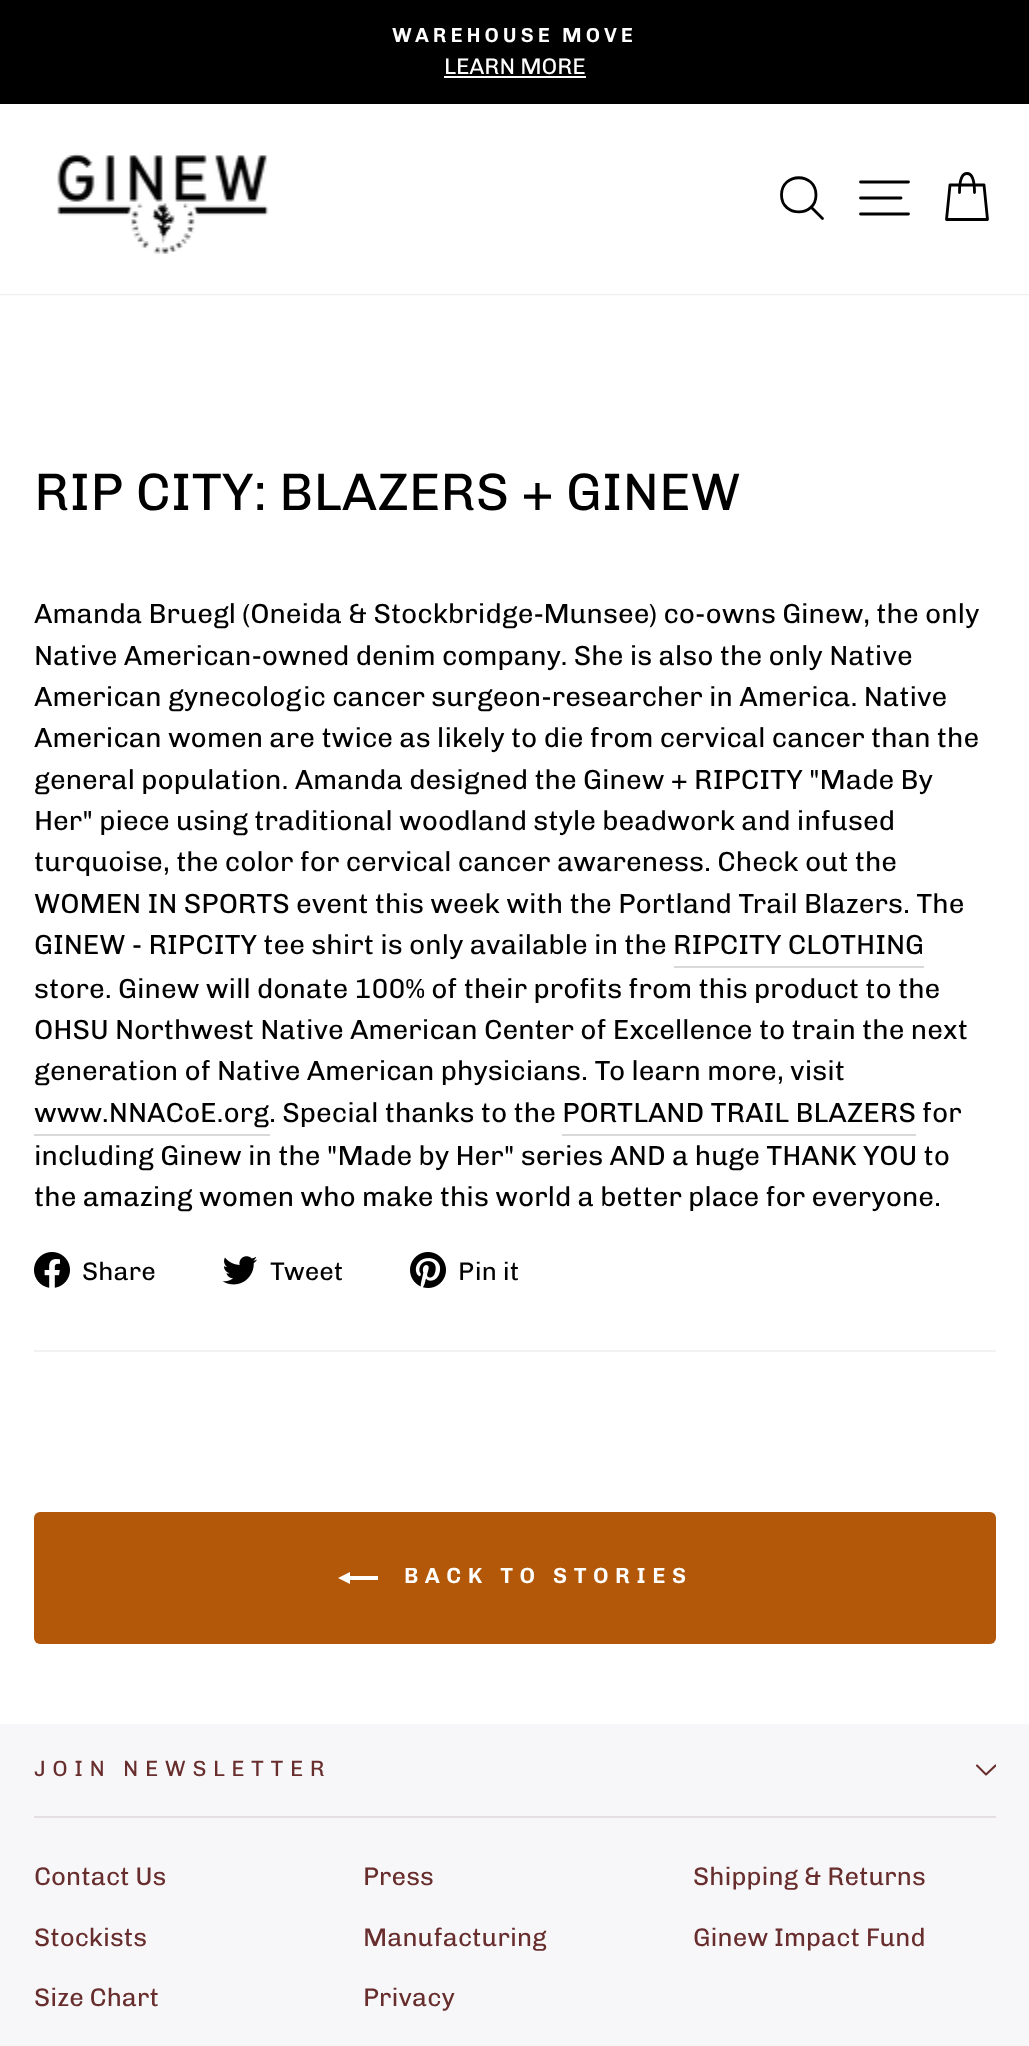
async function draw(canvas) {
	canvas.width = 1029;
	canvas.height = 2046;
	const c = canvas.getContext('2d');
	c.miterLimit = 4;
	c.fontKerning = 'normal';
	async function loadImage(src) {
		const img = new Image();
		img.src = src;
		await img.decode();
		return img;
	}

	c.fillStyle = '#fff';
	c.fillRect(0, 0, 1029, 2046);
	c.fillStyle = '#000';
	c.fillRect(0, 0, 1029, 104);
	c.letterSpacing = '4px';
	c.font = '600 20.25px Chivo';
	c.fillStyle = '#fff';
	c.fillText('WAREHOUSE MOVE', 392, 42);
	c.letterSpacing = '0px';
	c.font = '22.5px Chivo';
	c.fillText('LEARN MORE', 444, 74);
	c.fillRect(444, 76, 142, 2);
	c.save();
	c.beginPath();
	c.moveTo(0, 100);
	c.lineTo(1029, 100);
	c.lineTo(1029, 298);
	c.lineTo(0, 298);
	c.closePath();
	c.moveTo(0, 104);
	c.lineTo(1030, 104);
	c.lineTo(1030, 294);
	c.lineTo(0, 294);
	c.closePath();
	c.clip('evenodd');
	c.fillStyle = '#00000033';
	c.filter = 'blur(1px)';
	c.beginPath();
	c.rect(0, 104, 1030, 190);
	c.fill();
	c.filter = 'none';
	c.restore();
	c.drawImage(await loadImage('img1.png'), 57, 153, 212, 101);
	c.beginPath();
	c.moveTo(816, 195);
	c.bezierCurveTo(816, 217.5, 781.5, 217.5, 781.5, 195);
	c.bezierCurveTo(781.5, 172, 816, 172, 816, 195);
	c.closePath();
	c.moveTo(822.5, 218.5);
	c.lineTo(811.5, 207.5);
	c.strokeStyle = '#000';
	c.lineWidth = 2.8;
	c.lineCap = 'round';
	c.lineJoin = 'round';
	c.stroke();
	c.beginPath();
	c.moveTo(860.5, 182);
	c.lineTo(908.5, 182);
	c.moveTo(860.5, 198);
	c.lineTo(901, 198);
	c.moveTo(860.5, 214);
	c.lineTo(908.5, 214);
	c.stroke();
	c.beginPath();
	c.moveTo(959.5, 192.5);
	c.bezierCurveTo(959.5, 177.5, 963, 173.5, 967, 173.5);
	c.bezierCurveTo(971, 173.5, 974.5, 177.5, 974.5, 192.5);
	c.moveTo(950, 185);
	c.lineTo(984, 185);
	c.lineTo(987.5, 219.5);
	c.lineTo(946.5, 219.5);
	c.closePath();
	c.stroke();
	c.font = '52.75px Chivo';
	c.fillStyle = '#000';
	c.fillText('RIP CITY: BLAZERS + GINEW', 34, 510);
	c.font = '27.6px Chivo';
	for (const [text, x, y] of [
		['Amanda Bruegl (Oneida & Stockbridge-Munsee) co-owns Ginew, the only', 34, 623],
		['Native American-owned denim company. She is also the only Native', 34, 665],
		['American gynecologic cancer surgeon-researcher in America. Native', 34, 706],
		['American women are twice as likely to die from cervical cancer than the', 34, 747],
		['general population. Amanda designed the Ginew + RIPCITY "Made By', 34, 789],
		['Her" piece using traditional woodland style beadwork and infused', 34, 830],
		['turquoise, the color for cervical cancer awareness. Check out the', 34, 871],
		['WOMEN IN SPORTS event this week with the Portland Trail Blazers. The', 34, 913],
		['GINEW - RIPCITY tee shirt is only available in the RIPCITY CLOTHING', 34, 954],
	]) {
		c.fillText(text, x, y);
	}
	c.fillStyle = '#d9d9d9';
	c.fillRect(674, 966, 250, 2);
	c.fillStyle = '#000';
	for (const [text, x, y] of [
		['store. Ginew will donate 100% of their profits from this product to the', 34, 998],
		['OHSU Northwest Native American Center of Excellence to train the next', 34, 1039],
		['generation of Native American physicians. To learn more, visit', 34, 1080],
	]) {
		c.fillText(text, x, y);
	}
	c.fillStyle = '#d9d9d9';
	c.fillRect(34, 1134, 236, 2);
	c.fillStyle = '#000';
	for (const [text, x, y] of [
		['www.NNACoE.org', 34, 1122],
		['. Special thanks to the PORTLAND TRAIL BLAZERS', 269, 1122],
		['for', 922, 1122],
	]) {
		c.fillText(text, x, y);
	}
	c.fillStyle = '#d9d9d9';
	c.fillRect(562, 1134, 354, 2);
	c.fillStyle = '#000';
	c.fillText('including Ginew in the "Made by Her" series AND a huge THANK YOU to', 34, 1165);
	c.fillText('the amazing women who make this world a better place for everyone.', 34, 1206);
	c.drawImage(await loadImage('img2.png'), 34, 1252, 36, 36);
	c.font = '25.5px Chivo';
	c.fillText('Share', 82, 1280);
	c.drawImage(await loadImage('img3.png'), 222, 1256, 35, 29);
	c.fillText('Tweet', 270, 1280);
	c.drawImage(await loadImage('img4.png'), 410, 1252, 36, 36);
	c.fillText('Pin it', 458, 1280);
	c.fillStyle = '#f2f2f2';
	c.fillRect(34, 1350, 962, 2);
	c.fillStyle = '#b35809';
	c.beginPath();
	c.roundRect(34, 1512, 962, 132, 6);
	c.fill();
	c.fillStyle = '#fff';
	c.beginPath();
	c.moveTo(378, 1576);
	c.lineTo(378, 1580);
	c.lineTo(350, 1580);
	c.lineTo(350, 1584);
	c.lineTo(338, 1578);
	c.lineTo(350, 1572);
	c.lineTo(350, 1576);
	c.closePath();
	c.fill();
	c.letterSpacing = '6.6px';
	c.font = '600 22px Chivo';
	c.fillText('BACK TO STORIES', 404, 1583);
	c.fillStyle = '#f7f7f9';
	c.fillRect(0, 1724, 1029, 322);
	c.font = '22.1px Chivo';
	c.fillStyle = '#682d2d';
	c.fillText('JOIN NEWSLETTER', 34, 1776);
	c.save();
	c.beginPath();
	c.rect(976, 1760, 20, 20);
	c.clip();
	c.beginPath();
	c.moveTo(977, 1765.5);
	c.lineTo(986, 1774.5);
	c.lineTo(995.5, 1765.5);
	c.strokeStyle = '#682d2d';
	c.lineWidth = 2.1;
	c.stroke();
	c.restore();
	c.fillStyle = '#e6dfe1';
	c.fillRect(34, 1816, 962, 2);
	c.letterSpacing = '0px';
	c.font = '25.5px Chivo';
	c.fillStyle = '#682d2d';
	for (const [text, x, y] of [
		['Contact Us', 34, 1885],
		['Press', 363, 1885],
		['Shipping & Returns', 693, 1885],
		['Stockists', 34, 1946],
		['Manufacturing', 363, 1946],
		['Ginew Impact Fund', 693, 1946],
		['Size Chart', 34, 2006],
		['Privacy', 363, 2006],
	]) {
		c.fillText(text, x, y);
	}
}

draw(document.querySelector('canvas'));
